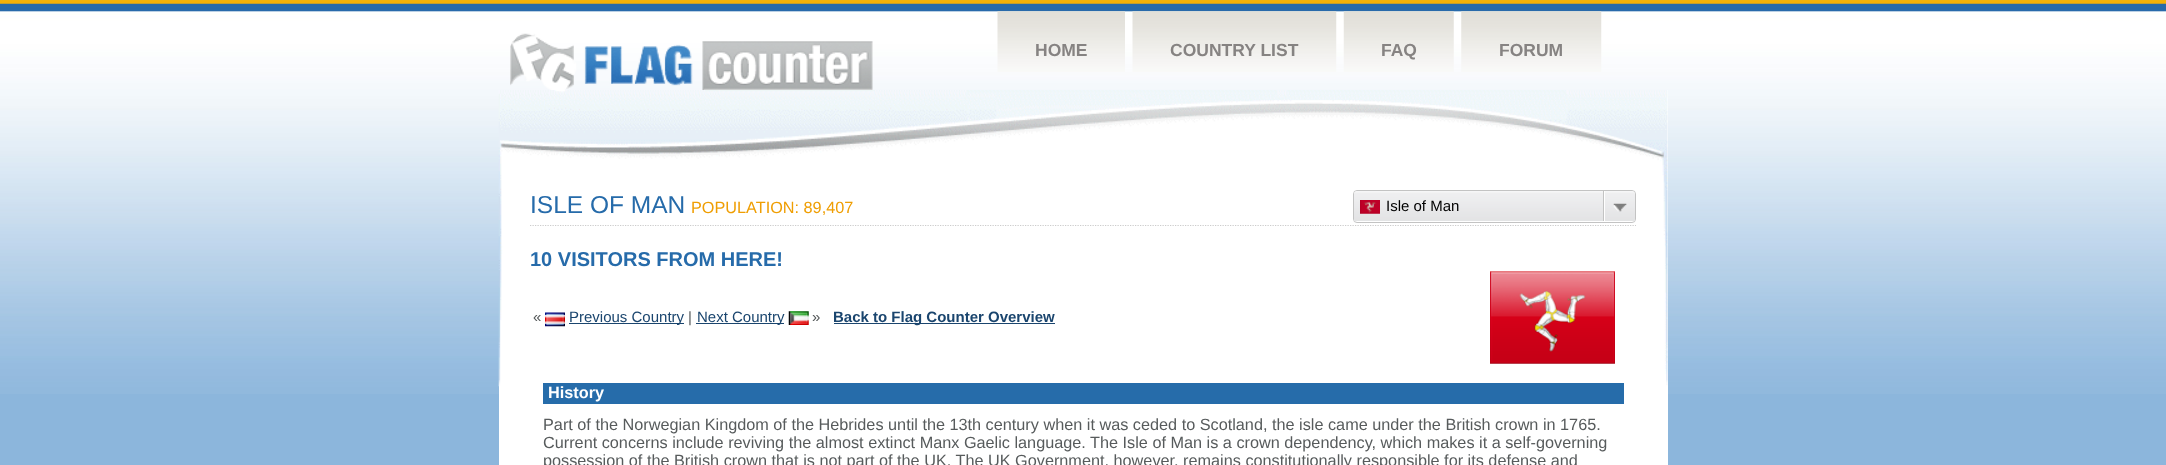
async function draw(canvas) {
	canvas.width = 2166;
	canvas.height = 465;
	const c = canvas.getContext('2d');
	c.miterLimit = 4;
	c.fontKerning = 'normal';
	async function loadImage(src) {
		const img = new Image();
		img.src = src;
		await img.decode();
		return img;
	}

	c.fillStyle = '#8cb6dc';
	c.fillRect(0, 0, 2166, 465);
	c.drawImage(await loadImage('img1.png'), 0, 0, 2166, 394);
	c.drawImage(await loadImage('img2.png'), 510, 33, 363, 57);
	c.drawImage(await loadImage('img3.png'), 997, 11, 128, 61);
	c.font = 'bold 17.5px Liberation Sans';
	c.fillStyle = '#868382';
	c.fillText('HOME', 1035, 56);
	c.drawImage(await loadImage('img4.png'), 1132, 11, 205, 61);
	c.fillText('COUNTRY LIST', 1170, 56);
	c.drawImage(await loadImage('img5.png'), 1343, 11, 111, 61);
	c.fillText('FAQ', 1381, 56);
	c.drawImage(await loadImage('img6.png'), 1461, 11, 141, 61);
	c.fillText('FORUM', 1499, 56);
	c.fillStyle = '#fff';
	c.fillRect(499, 90, 1169, 375);
	c.drawImage(await loadImage('img7.png'), 498, 90, 1170, 297);
	c.beginPath();
	c.moveTo(530, 225.5);
	c.lineTo(1636, 225.5);
	c.strokeStyle = '#ccc';
	c.lineWidth = 1.2;
	c.setLineDash([1.25, 1.25]);
	c.stroke();
	c.font = '24.5px Liberation Sans';
	c.fillStyle = '#266baa';
	c.fillText('ISLE OF MAN', 530, 213);
	c.font = '16.25px Liberation Sans';
	c.fillStyle = '#ef9e03';
	c.fillText('POPULATION: 89,407', 691, 213);
	c.beginPath();
	c.roundRect(1353.5, 190.5, 282, 32, 3.5);
	c.strokeStyle = '#c3c3c3';
	c.lineWidth = 1;
	c.setLineDash([]);
	c.stroke();
	c.fillStyle = '#f3f3f3';
	c.beginPath();
	c.roundRect(1354, 191, 281, 30, [4, 4, 0, 0]);
	c.fill();
	c.drawImage(await loadImage('img8.png'), 1354, 191, 281, 30);
	c.drawImage(await loadImage('img9.png'), 1360, 200, 20, 14);
	c.font = '15px Liberation Sans';
	c.fillStyle = '#000';
	c.fillText('Isle of Man', 1386, 211);
	c.fillStyle = '#fff';
	c.fillRect(1604, 191, 1, 30);
	c.fillStyle = '#c3c3c3';
	c.fillRect(1603, 191, 1, 30);
	c.drawImage(await loadImage('img10.png'), 1613, 203, 14, 9);
	c.font = 'bold 20px Liberation Sans';
	c.fillStyle = '#266baa';
	c.fillText('10 VISITORS FROM HERE!', 530, 266);
	c.font = '15px Liberation Sans';
	c.fillStyle = '#575b5c';
	c.fillText('«', 533, 322);
	c.drawImage(await loadImage('img11.png'), 545, 312, 20, 15);
	c.fillStyle = '#1a456e';
	c.fillRect(569, 323, 115, 1);
	c.fillText('Previous Country', 569, 322);
	c.fillStyle = '#575b5c';
	c.fillText('|', 688, 322);
	c.fillStyle = '#1a456e';
	c.fillRect(696, 323, 88, 1);
	c.fillText('Next Country', 697, 322);
	c.drawImage(await loadImage('img12.png'), 788, 311, 21, 14);
	c.fillStyle = '#575b5c';
	c.fillText('»', 812, 322);
	c.fillStyle = '#1a456e';
	c.fillRect(834, 323, 221, 1);
	c.font = 'bold 15px Liberation Sans';
	c.fillText('Back to Flag Counter Overview', 833, 322);
	c.drawImage(await loadImage('img13.png'), 1490, 271, 125, 93);
	c.fillStyle = '#266caa';
	c.fillRect(543, 383, 1081, 21);
	c.font = 'bold 16.25px Liberation Sans';
	c.fillStyle = '#fff';
	c.fillText('History', 548, 398);
	c.font = '16.25px Liberation Sans';
	c.fillStyle = '#575b5c';
	for (const [text, x, y] of [
		['Part of the Norwegian Kingdom of the Hebrides until the 13th century when it was ceded to Scotland, the isle came under the British crown in 1765.', 543, 430],
		['Current concerns include reviving the almost extinct Manx Gaelic language. The Isle of Man is a crown dependency, which makes it a self-governing', 543, 448],
		['possession of the British crown that is not part of the UK. The UK Government, however, remains constitutionally responsible for its defense and', 543, 466],
	]) {
		c.fillText(text, x, y);
	}
}

draw(document.querySelector('canvas'));
